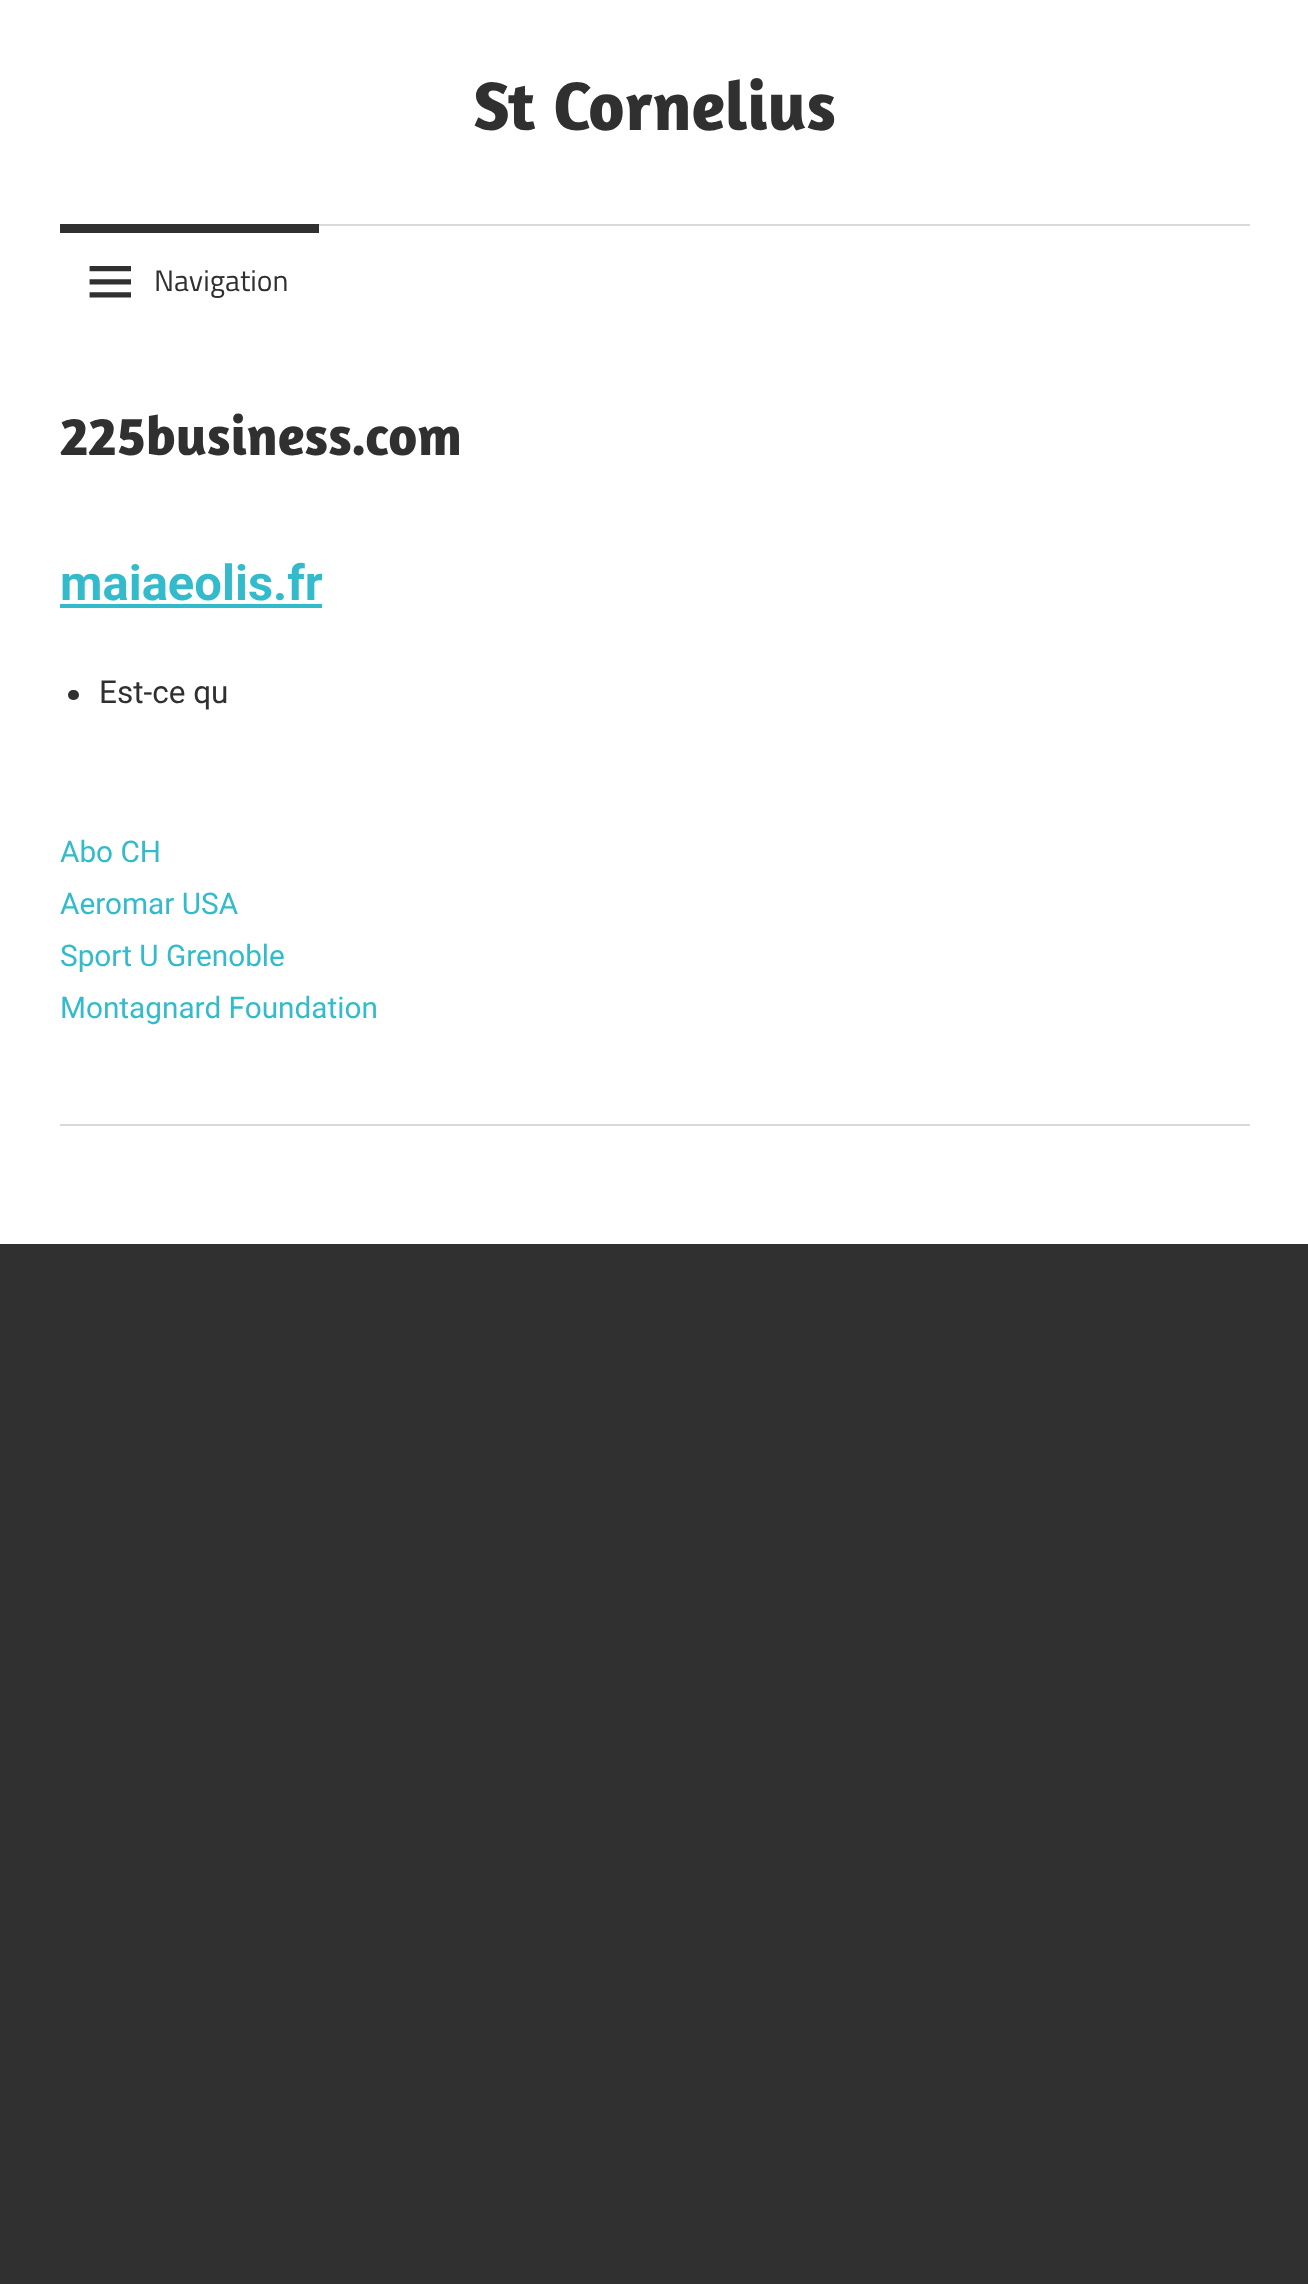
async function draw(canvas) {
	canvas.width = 1308;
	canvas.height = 2284;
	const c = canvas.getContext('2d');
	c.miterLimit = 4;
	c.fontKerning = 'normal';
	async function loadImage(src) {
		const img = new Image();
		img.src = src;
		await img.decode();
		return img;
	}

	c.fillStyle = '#303030';
	c.fillRect(0, 0, 1308, 2284);
	c.fillStyle = '#fff';
	c.fillRect(0, 0, 1308, 1244);
	c.font = 'bold 70px Amaranth';
	c.fillStyle = '#303030';
	c.fillText('St Cornelius', 473, 130);
	c.fillStyle = '#d9d9d9';
	c.fillRect(319, 224, 931, 2);
	c.fillStyle = '#303030';
	c.fillRect(60, 224, 259, 9);
	c.drawImage(await loadImage('img1.png'), 89, 266, 42, 32);
	c.font = '29.75px Titillium Web';
	c.fillText('Navigation', 154, 291);
	c.font = 'bold 56px Amaranth';
	c.fillText('225business.com', 60, 455);
	c.font = 'bold 49px Roboto';
	c.fillStyle = '#3bc';
	c.fillText('maiaeolis.fr', 60, 600);
	c.fillRect(60, 604, 262, 4);
	c.fillStyle = '#303030';
	c.beginPath();
	c.roundRect(68, 690, 11, 10, 5);
	c.fill();
	c.font = '31.5px Roboto';
	c.fillText('Est-ce qu', 99, 703);
	c.font = '29.75px Roboto';
	c.fillStyle = '#3bc';
	for (const [text, x, y] of [
		['Abo CH', 60, 862],
		['Aeromar USA', 60, 914],
		['Sport U Grenoble', 60, 966],
		['Montagnard Foundation', 60, 1018],
	]) {
		c.fillText(text, x, y);
	}
	c.fillStyle = '#d9d9d9';
	c.fillRect(60, 1124, 1190, 2);
}

draw(document.querySelector('canvas'));
